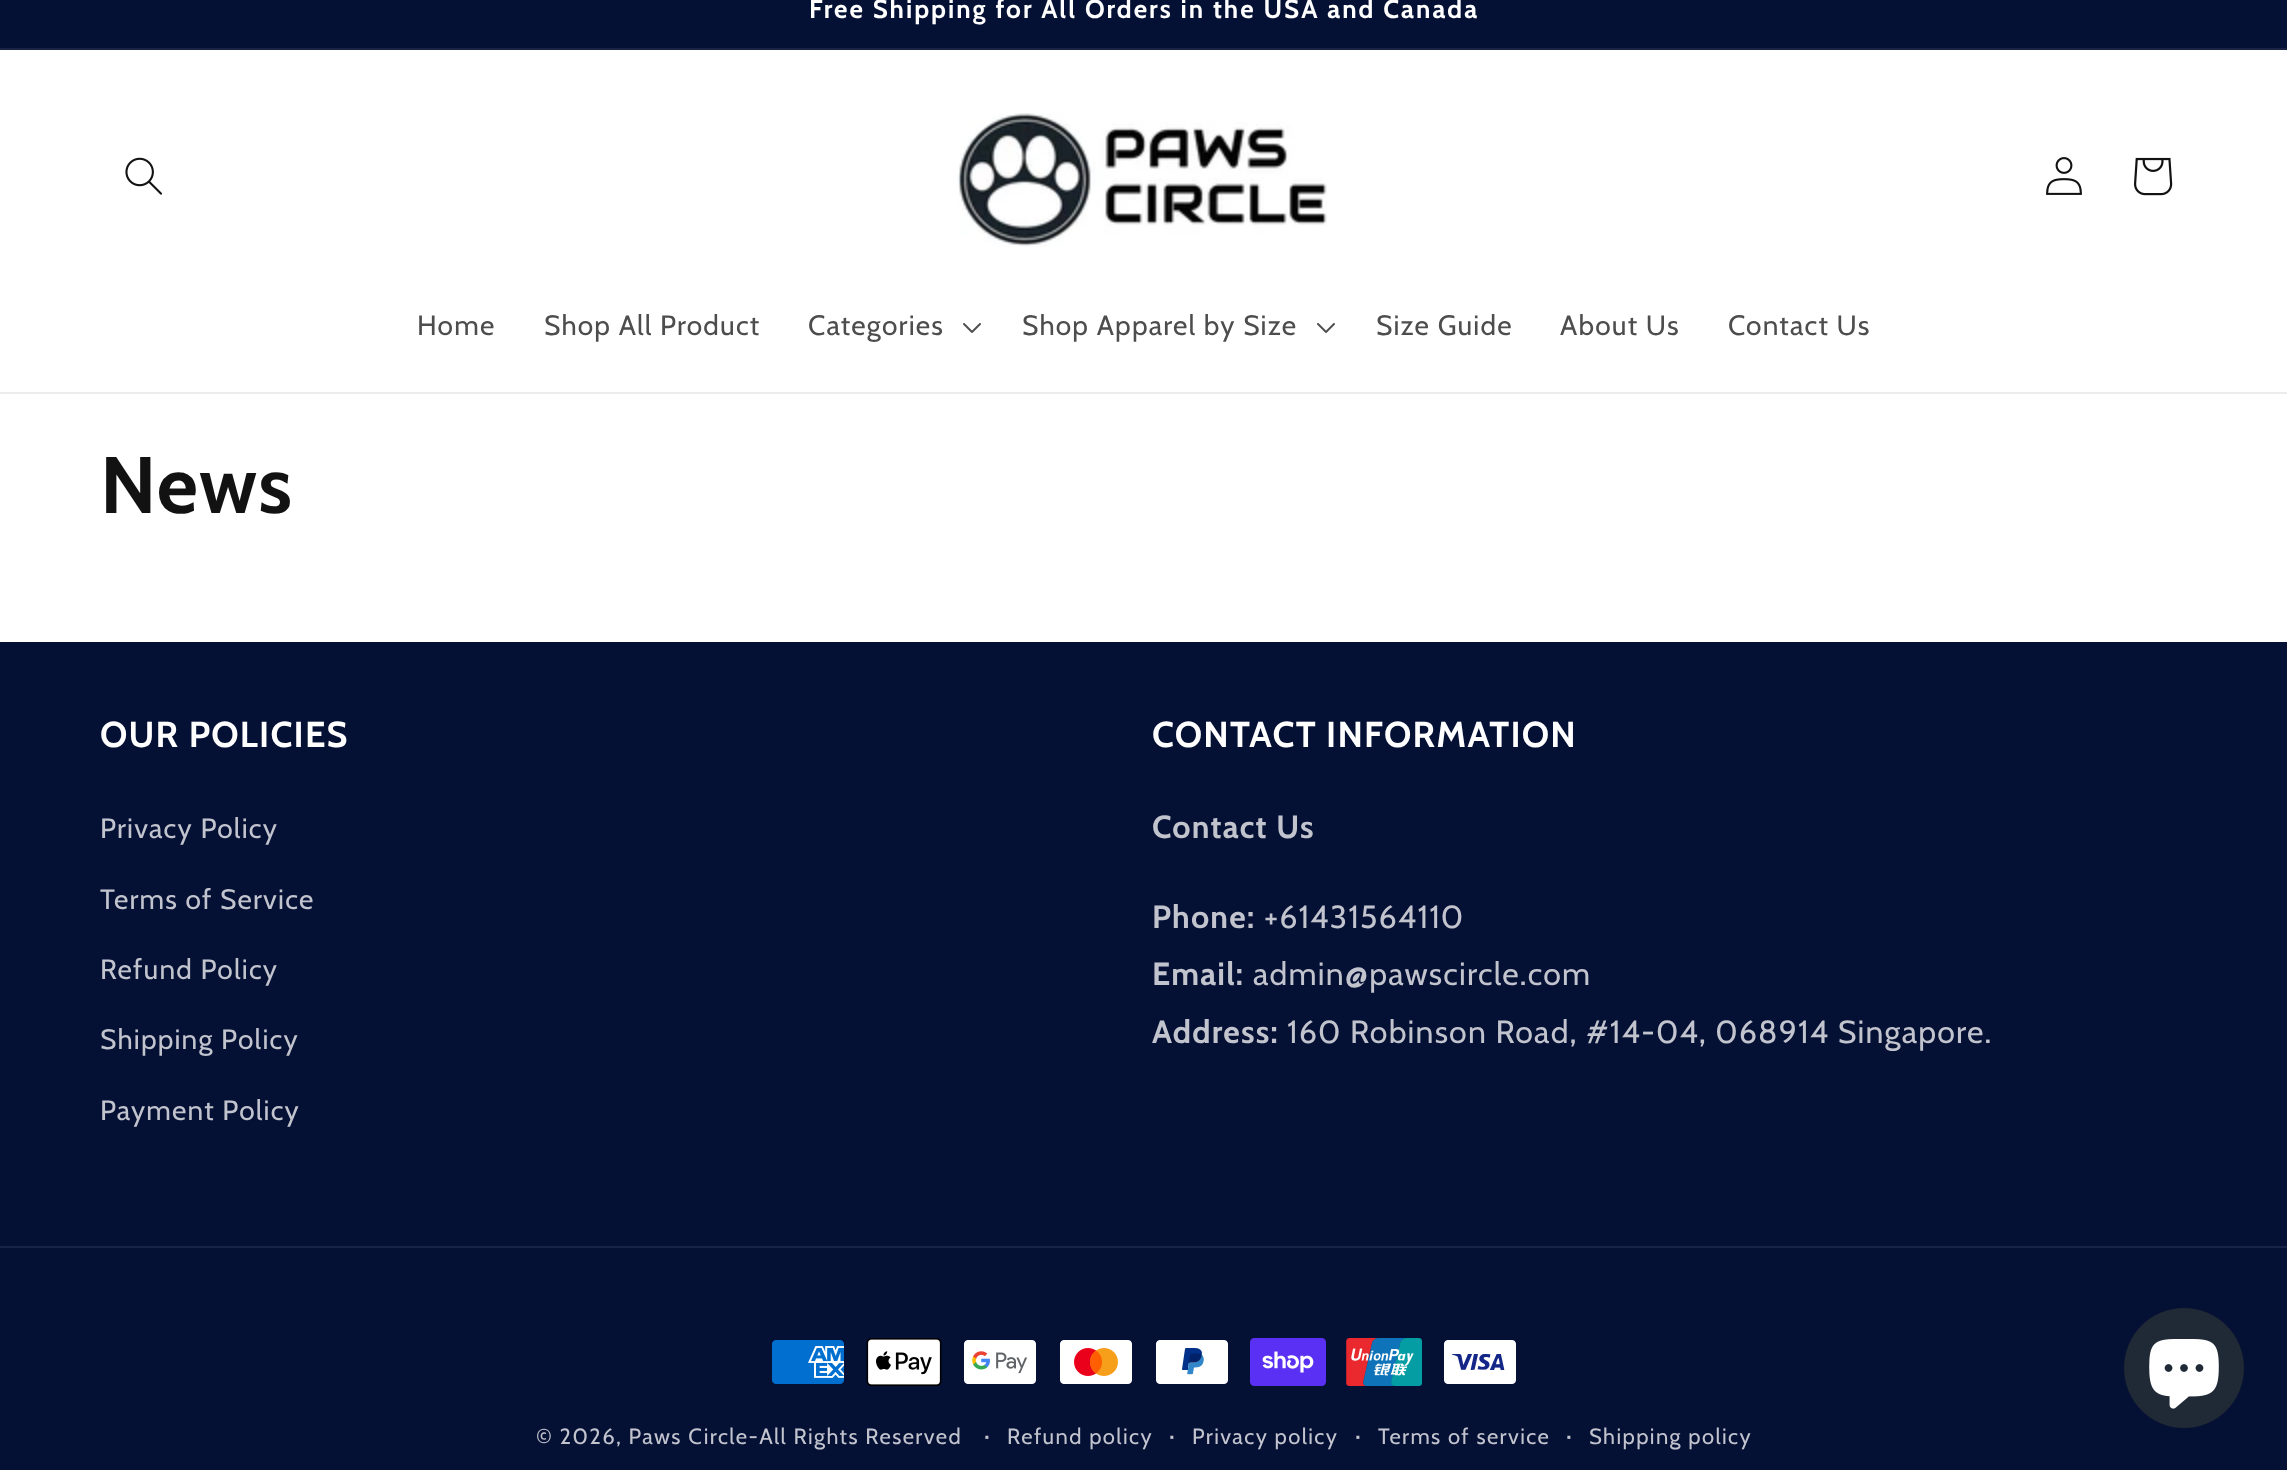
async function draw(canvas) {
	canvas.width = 2287;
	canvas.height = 1470;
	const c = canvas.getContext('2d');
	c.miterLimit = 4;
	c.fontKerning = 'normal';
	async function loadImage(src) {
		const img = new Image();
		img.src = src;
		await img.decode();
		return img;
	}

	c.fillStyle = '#fff';
	c.fillRect(0, 0, 2287, 1470);
	c.fillStyle = '#051035';
	c.fillRect(0, 0, 2287, 48);
	c.fillStyle = '#192345';
	c.fillRect(0, 48, 2287, 2);
	c.letterSpacing = '2px';
	c.font = 'bold 26px Cabin';
	c.fillStyle = '#fff';
	c.fillText('Free Shipping for All Orders in the USA and Canada', 809, 18);
	c.fillStyle = '#ececec';
	c.fillRect(0, 392, 2287, 2);
	c.drawImage(await loadImage('img1.png'), 125, 157, 37, 38);
	c.drawImage(await loadImage('img2.png'), 957, 113, 370, 134);
	c.drawImage(await loadImage('img3.png'), 2046, 157, 36, 38);
	c.drawImage(await loadImage('img4.png'), 2134, 157, 39, 39);
	c.letterSpacing = '1.2px';
	c.font = '28px Cabin';
	c.fillStyle = '#4d4d4d';
	for (const [text, x, y] of [
		['Home', 417, 335],
		['Shop All Product', 544, 335],
		['Categories', 808, 335],
	]) {
		c.fillText(text, x, y);
	}
	c.drawImage(await loadImage('img5.png'), 963, 323, 18, 10);
	c.fillText('Shop Apparel by Size', 1022, 335);
	c.drawImage(await loadImage('img5.png'), 1317, 323, 18, 10);
	for (const [text, x, y] of [
		['Size Guide', 1376, 335],
		['About Us', 1560, 335],
		['Contact Us', 1728, 335],
	]) {
		c.fillText(text, x, y);
	}
	c.font = 'bold 80px Cabin';
	c.fillStyle = '#121212';
	c.fillText('News', 100, 513);
	c.fillStyle = '#051035';
	c.fillRect(0, 642, 2287, 828);
	c.font = 'bold 36px Cabin';
	c.fillStyle = '#fff';
	c.fillText('OUR POLICIES', 100, 747);
	c.font = '28px Cabin';
	c.fillStyle = '#c1c3cd';
	for (const [text, x, y] of [
		['Privacy Policy', 100, 838],
		['Terms of Service', 100, 909],
		['Refund Policy', 100, 979],
		['Shipping Policy', 100, 1049],
		['Payment Policy', 100, 1120],
	]) {
		c.fillText(text, x, y);
	}
	c.font = 'bold 36px Cabin';
	c.fillStyle = '#fff';
	c.fillText('CONTACT INFORMATION', 1152, 747);
	c.font = 'bold 32px Cabin';
	c.fillStyle = '#c1c3cd';
	c.fillText('Contact Us', 1152, 838);
	c.fillText('Phone:', 1152, 928);
	c.font = '32px Cabin';
	c.fillText('+61431564110', 1264, 928);
	c.font = 'bold 32px Cabin';
	c.fillText('Email:', 1152, 985);
	c.font = '32px Cabin';
	c.fillText('admin@pawscircle.com', 1253, 985);
	c.font = 'bold 32px Cabin';
	c.fillText('Address:', 1152, 1043);
	c.font = '32px Cabin';
	c.fillText('160 Robinson Road, #14-04, 068914 Singapore.', 1287, 1043);
	c.fillStyle = '#192345';
	c.fillRect(0, 1246, 2287, 2);
	c.drawImage(await loadImage('img6.png'), 772, 1340, 72, 44);
	c.drawImage(await loadImage('img7.png'), 866, 1338, 76, 48);
	c.drawImage(await loadImage('img8.png'), 964, 1340, 72, 44);
	c.drawImage(await loadImage('img9.png'), 1060, 1340, 72, 44);
	c.drawImage(await loadImage('img10.png'), 1156, 1340, 72, 44);
	c.drawImage(await loadImage('img11.png'), 1250, 1338, 76, 48);
	c.drawImage(await loadImage('img12.png'), 1346, 1338, 76, 48);
	c.drawImage(await loadImage('img13.png'), 1444, 1340, 72, 44);
	c.letterSpacing = '1.4px';
	c.font = '22px Cabin';
	c.fillStyle = '#c1c3cd';
	c.fillText('© 2026, Paws Circle-All Rights Reserved', 536, 1444);
	c.font = '24px Cabin';
	c.fillText('·', 984, 1444);
	c.font = '22px Cabin';
	c.fillText('Refund policy', 1007, 1444);
	c.font = '24px Cabin';
	c.fillText('·', 1169, 1444);
	c.font = '22px Cabin';
	c.fillText('Privacy policy', 1192, 1444);
	c.font = '24px Cabin';
	c.fillText('·', 1355, 1444);
	c.font = '22px Cabin';
	c.fillText('Terms of service', 1378, 1444);
	c.font = '24px Cabin';
	c.fillText('·', 1566, 1444);
	c.font = '22px Cabin';
	c.fillText('Shipping policy', 1589, 1444);
	c.fillStyle = '#202a36';
	c.beginPath();
	c.arc(2184, 1368, 60, 0, 2 * Math.PI);
	c.fill();
	c.drawImage(await loadImage('img14.png'), 2149, 1339, 70, 70);
}

draw(document.querySelector('canvas'));
